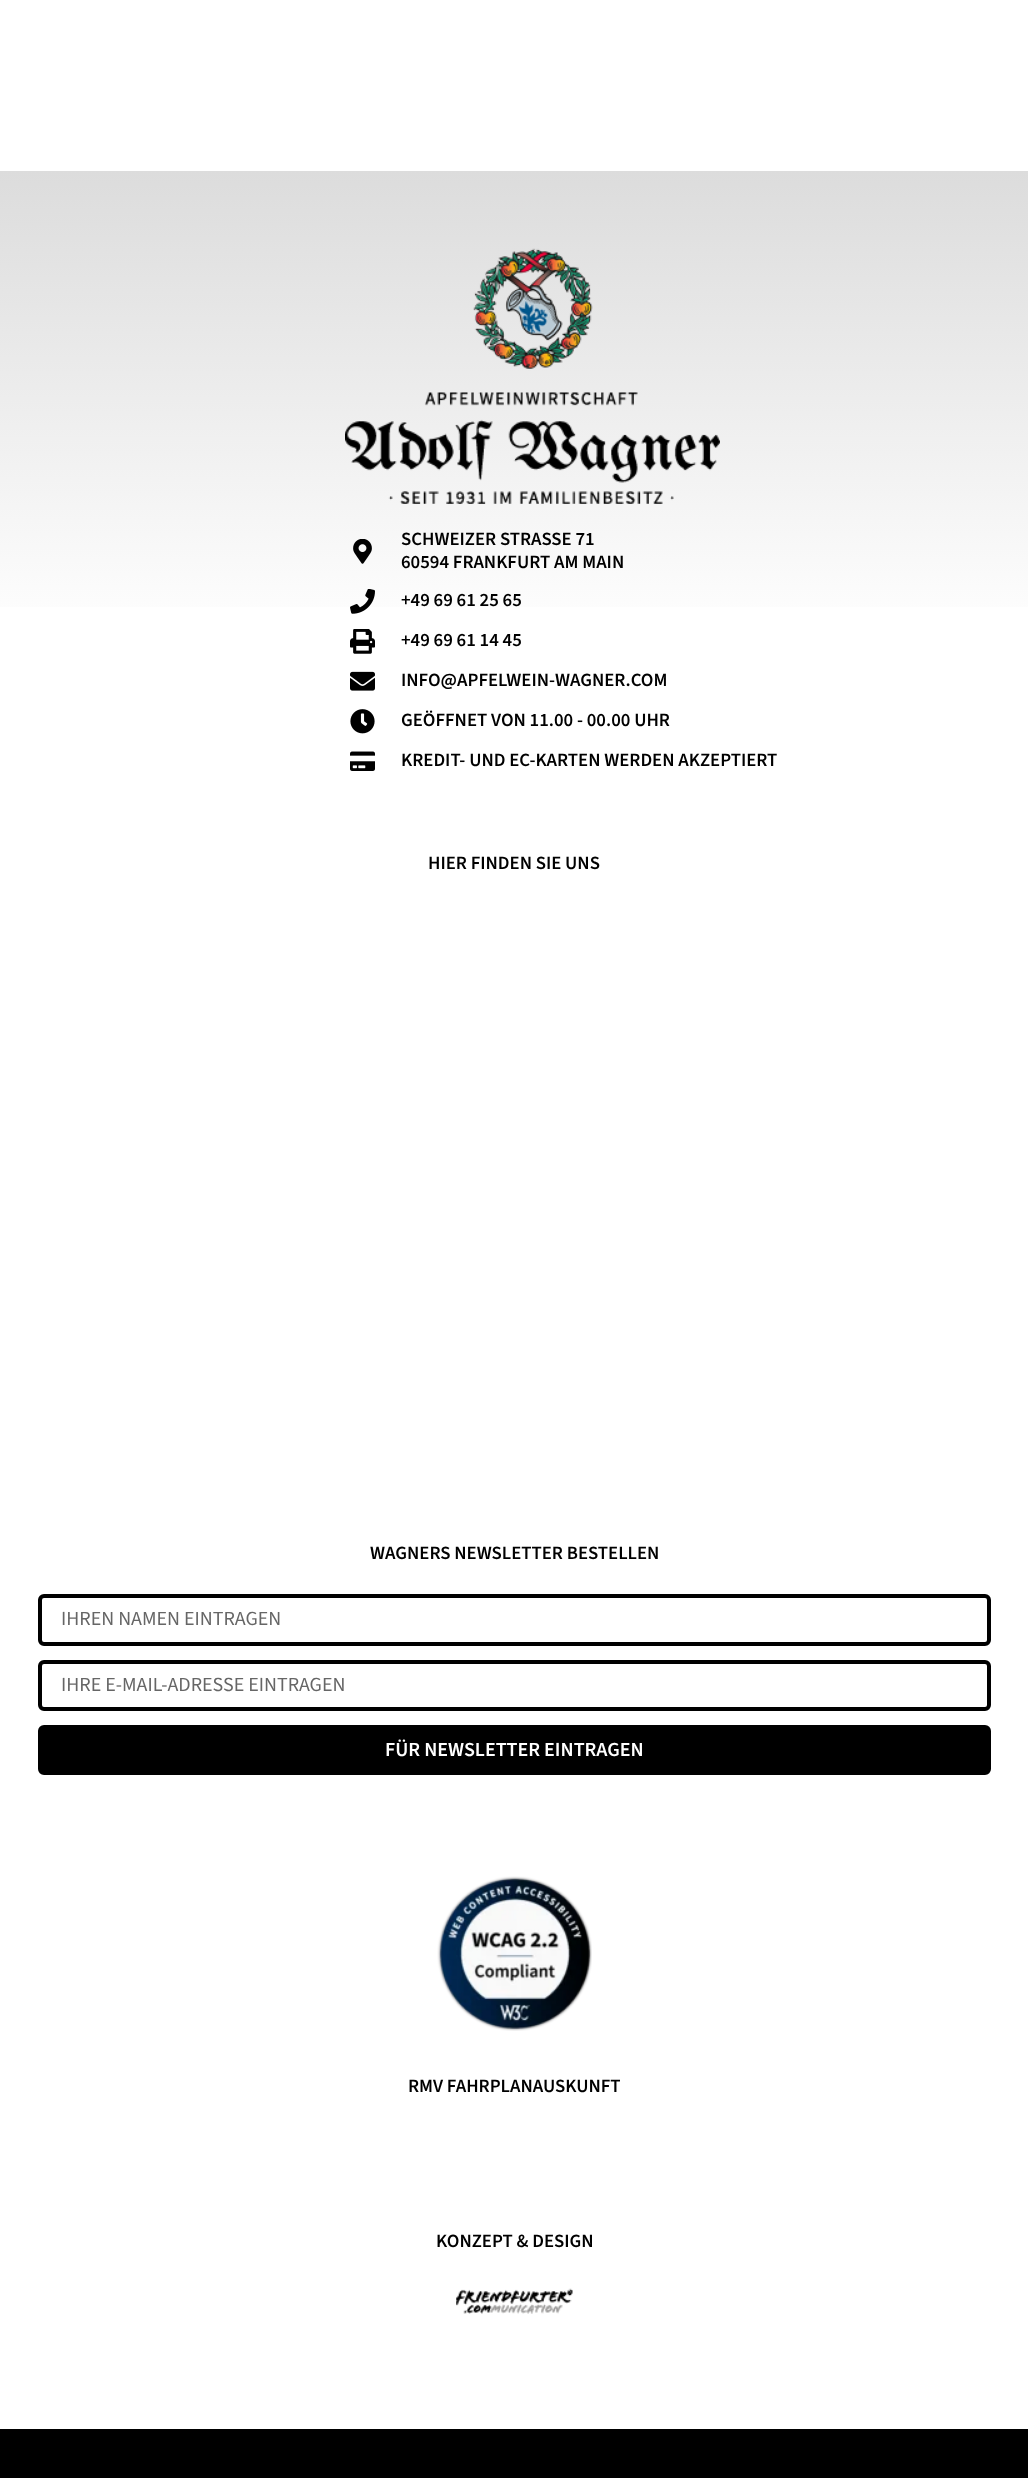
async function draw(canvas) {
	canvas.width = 1028;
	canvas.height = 2478;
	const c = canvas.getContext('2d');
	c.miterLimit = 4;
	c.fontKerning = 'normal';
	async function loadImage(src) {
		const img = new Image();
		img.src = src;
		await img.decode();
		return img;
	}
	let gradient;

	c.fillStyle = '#fff';
	c.fillRect(0, 0, 1028, 2478);
	gradient = c.createLinearGradient(514, 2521, 514, 171);
	gradient.addColorStop(0.8, '#fff');
	gradient.addColorStop(1, '#dcdcdc');
	c.fillStyle = gradient;
	c.fillRect(0, 171, 1028, 436);
	c.drawImage(await loadImage('img1.png'), 345, 248, 375, 256);
	c.drawImage(await loadImage('img2.png'), 353, 539, 19, 25);
	c.font = '600 18.75px "Source Sans 3"';
	c.fillStyle = '#000';
	c.fillText('SCHWEIZER STRASSE 71', 401, 545);
	c.fillText('60594 FRANKFURT AM MAIN', 401, 568);
	c.drawImage(await loadImage('img3.png'), 350, 589, 25, 25);
	c.fillText('+49 69 61 25 65', 401, 606);
	c.drawImage(await loadImage('img4.png'), 350, 629, 25, 25);
	c.fillText('+49 69 61 14 45', 401, 646);
	c.drawImage(await loadImage('img5.png'), 350, 671, 25, 20);
	c.fillText('INFO@APFELWEIN-WAGNER.COM', 401, 686);
	c.drawImage(await loadImage('img6.png'), 350, 709, 25, 25);
	c.fillText('GEÖFFNET VON 11.00 - 00.00 UHR', 401, 726);
	c.drawImage(await loadImage('img7.png'), 350, 751, 25, 20);
	for (const [text, x, y] of [
		['KREDIT- UND EC-KARTEN WERDEN AKZEPTIERT', 401, 766],
		['HIER FINDEN SIE UNS', 428, 869],
		['WAGNERS NEWSLETTER BESTELLEN', 370, 1559],
	]) {
		c.fillText(text, x, y);
	}
	c.beginPath();
	c.roundRect(40, 1596, 949, 48, 4);
	c.strokeStyle = '#000';
	c.lineWidth = 4;
	c.stroke();
	c.font = '20px "Source Sans 3"';
	c.fillStyle = '#666';
	c.fillText('IHREN NAMEN EINTRAGEN', 61, 1625);
	c.beginPath();
	c.roundRect(40, 1662, 949, 47, 4);
	c.stroke();
	c.fillText('IHRE E-MAIL-ADRESSE EINTRAGEN', 61, 1691);
	c.fillStyle = '#000';
	c.beginPath();
	c.roundRect(40, 1727, 949, 46, 4);
	c.fill();
	c.stroke();
	c.font = '600 20px "Source Sans 3"';
	c.fillStyle = '#fff';
	c.fillText('FÜR NEWSLETTER EINTRAGEN', 385, 1756);
	c.drawImage(await loadImage('img8.png'), 437, 1876, 155, 155);
	c.font = '600 18.75px "Source Sans 3"';
	c.fillStyle = '#000';
	c.fillText('RMV FAHRPLANAUSKUNFT', 408, 2092);
	c.fillText('KONZEPT & DESIGN', 436, 2247);
	c.drawImage(await loadImage('img9.png'), 456, 2288, 117, 26);
	c.fillRect(0, 2429, 1028, 49);
}

draw(document.querySelector('canvas'));
